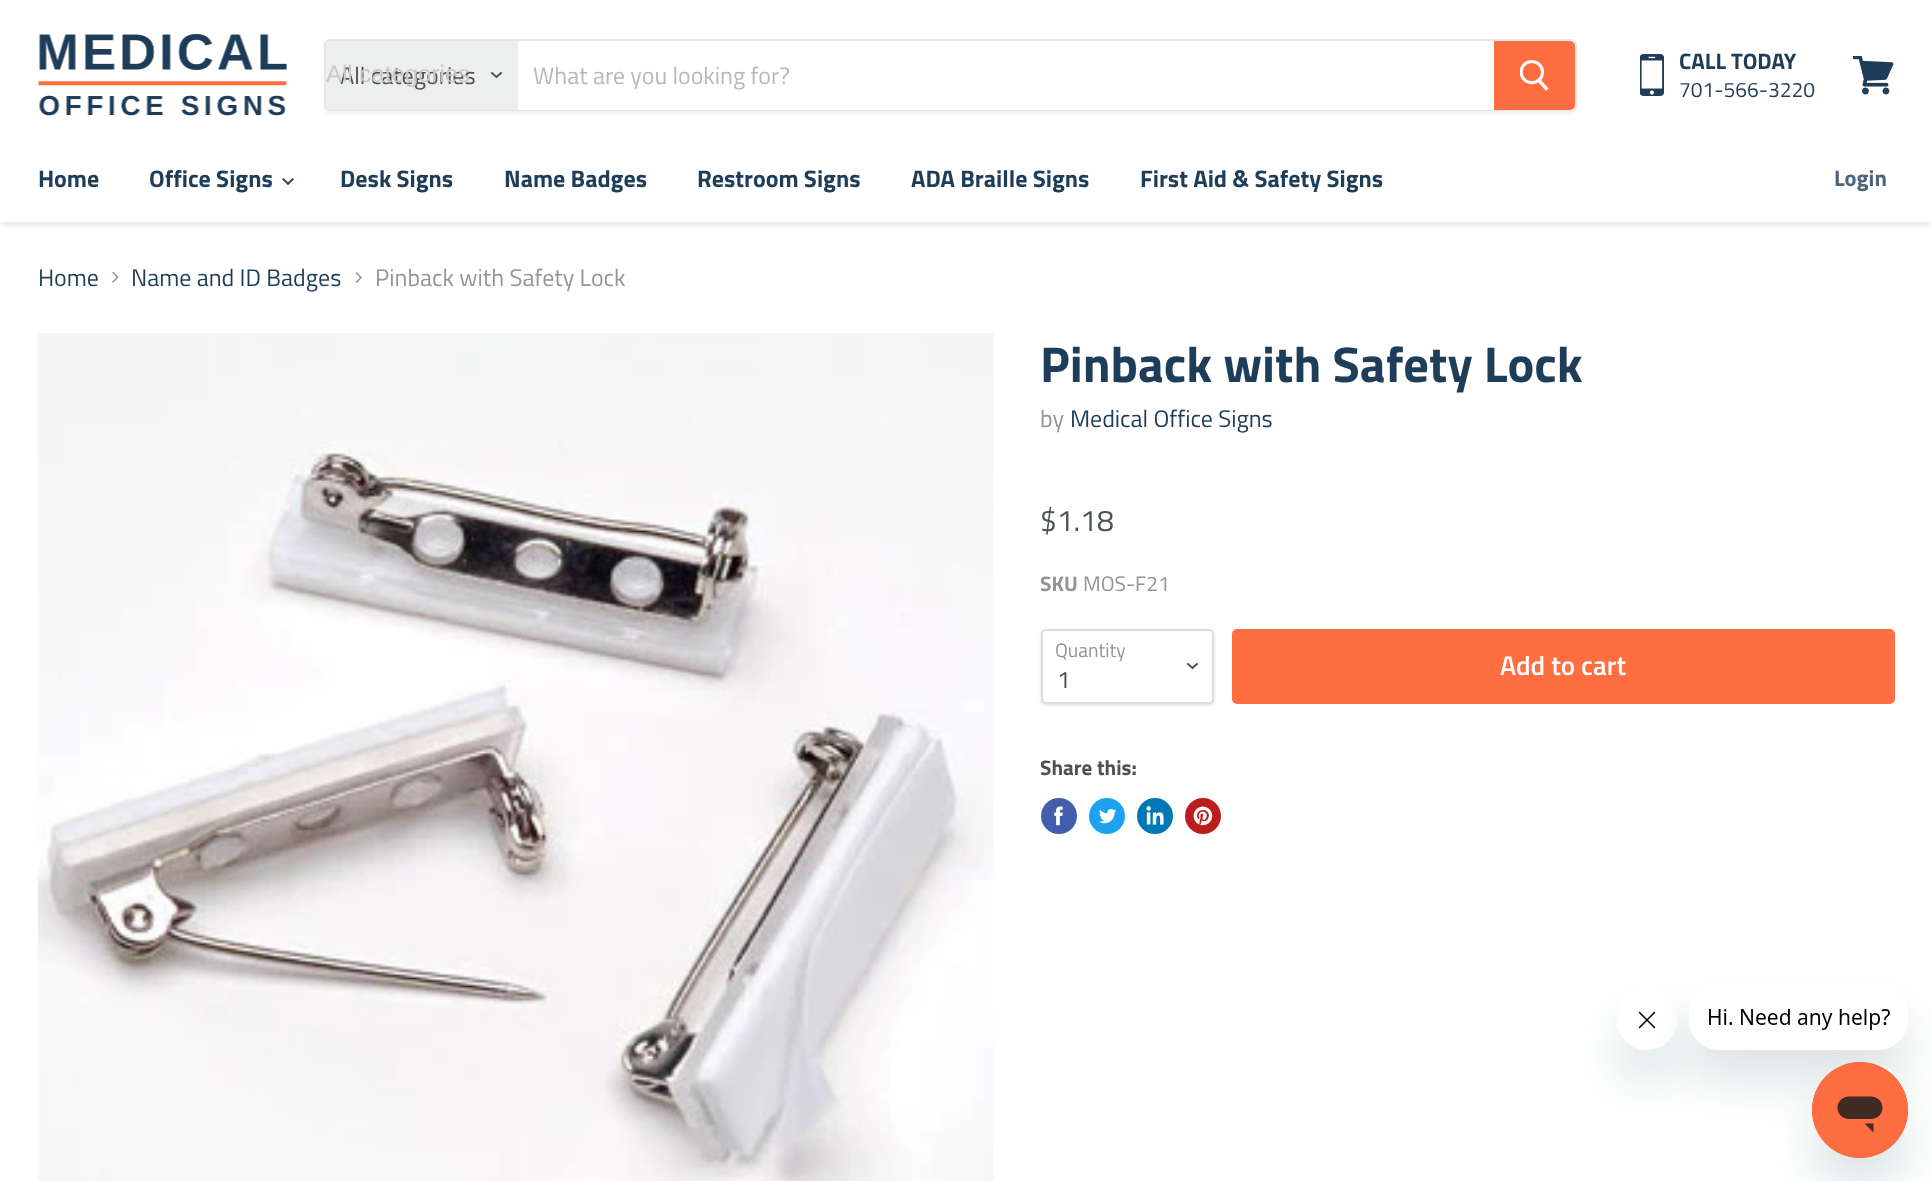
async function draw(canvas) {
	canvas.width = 1931;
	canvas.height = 1181;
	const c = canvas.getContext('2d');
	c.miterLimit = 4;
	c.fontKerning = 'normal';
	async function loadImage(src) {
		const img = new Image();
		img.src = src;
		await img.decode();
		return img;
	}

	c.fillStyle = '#fff';
	c.fillRect(0, 0, 1931, 1181);
	c.save();
	c.beginPath();
	c.rect(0, 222, 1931, 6);
	c.clip();
	c.fillStyle = '#80808040';
	c.filter = 'blur(3px)';
	c.beginPath();
	c.rect(0, 2, 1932, 222);
	c.fill();
	c.filter = 'none';
	c.restore();
	c.drawImage(await loadImage('img1.png'), 38, 34, 250, 82);
	c.save();
	c.beginPath();
	c.moveTo(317, 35);
	c.lineTo(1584, 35);
	c.lineTo(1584, 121);
	c.lineTo(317, 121);
	c.closePath();
	c.moveTo(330, 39);
	c.lineTo(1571, 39);
	c.bezierCurveTo(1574.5, 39, 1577, 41.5, 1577, 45);
	c.lineTo(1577, 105);
	c.bezierCurveTo(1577, 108.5, 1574.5, 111, 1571, 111);
	c.lineTo(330, 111);
	c.bezierCurveTo(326.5, 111, 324, 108.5, 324, 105);
	c.lineTo(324, 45);
	c.bezierCurveTo(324, 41.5, 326.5, 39, 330, 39);
	c.closePath();
	c.clip('evenodd');
	c.fillStyle = '#8080801c';
	c.filter = 'blur(2px)';
	c.beginPath();
	c.roundRect(324, 42, 1253, 72, 6);
	c.fill();
	c.filter = 'none';
	c.restore();
	c.beginPath();
	c.roundRect(325, 40, 1251, 70, 5);
	c.strokeStyle = '#80808033';
	c.lineWidth = 2;
	c.stroke();
	c.fillStyle = '#edeeee';
	c.beginPath();
	c.roundRect(326, 41, 192, 69, [5, 0, 0, 5]);
	c.fill();
	c.font = '24px Titillium Web';
	c.fillStyle = '#4d4d4d';
	c.fillText('All categories', 340, 84);
	c.font = '24px Liberation Sans';
	c.fillStyle = '#c7c8c8';
	c.fillText('All categories', 326, 82);
	c.beginPath();
	c.moveTo(496.5, 77);
	c.lineTo(501, 73);
	c.moveTo(496.5, 77);
	c.lineTo(492, 73);
	c.strokeStyle = '#4d4d4d';
	c.lineWidth = 1.9;
	c.lineCap = 'square';
	c.stroke();
	c.fillStyle = '#fff';
	c.fillRect(518, 109, 976, 1);
	c.font = '24px Titillium Web';
	c.fillStyle = '#b8b8b8';
	c.fillText('What are you looking for?', 533, 84);
	c.fillStyle = '#ff6e40';
	c.beginPath();
	c.roundRect(1495, 42, 79, 67, [0, 4, 4, 0]);
	c.fill();
	c.strokeStyle = '#ff6e40';
	c.lineWidth = 2;
	c.stroke();
	c.drawImage(await loadImage('img2.png'), 1520, 60, 29, 31);
	c.drawImage(await loadImage('img3.png'), 1640, 54, 24, 42);
	c.font = 'bold 22.5px Titillium Web';
	c.fillStyle = '#1e3d59';
	c.fillText('CALL TODAY', 1679, 69);
	c.font = '21px Titillium Web';
	c.fillText('701-566-3220', 1679, 97);
	c.drawImage(await loadImage('img4.png'), 1853, 56, 41, 39);
	c.font = 'bold 24px Titillium Web';
	c.fillText('Home', 38, 187);
	c.fillText('Office Signs', 149, 187);
	c.drawImage(await loadImage('img5.png'), 282, 178, 12, 7);
	for (const [text, x, y] of [
		['Desk Signs', 340, 187],
		['Name Badges', 504, 187],
		['Restroom Signs', 697, 187],
		['ADA Braille Signs', 911, 187],
		['First Aid & Safety Signs', 1140, 187],
	]) {
		c.fillText(text, x, y);
	}
	c.font = 'bold 22.5px Titillium Web';
	c.fillStyle = '#4b647a';
	c.fillText('Login', 1834, 186);
	c.font = '24px Titillium Web';
	c.fillStyle = '#1e3d59';
	c.fillText('Home', 38, 286);
	c.drawImage(await loadImage('img6.png'), 112, 272, 7, 11);
	c.fillText('Name and ID Badges', 131, 286);
	c.drawImage(await loadImage('img7.png'), 355, 272, 7, 11);
	c.fillStyle = '#949494';
	c.fillText('Pinback with Safety Lock', 375, 286);
	c.drawImage(await loadImage('img8.png'), 37, 333, 957, 848);
	c.font = 'bold 50.4px Titillium Web';
	c.fillStyle = '#1e3d59';
	c.fillText('Pinback with Safety Lock', 1040, 382);
	c.font = '24px Titillium Web';
	c.fillStyle = '#949494';
	c.fillText('by', 1040, 427);
	c.fillStyle = '#1e3d59';
	c.fillText('Medical Office Signs', 1070, 427);
	c.font = '30px Titillium Web';
	c.fillStyle = '#4c5154';
	c.fillText('$1.18', 1040, 531);
	c.font = 'bold 21px Titillium Web';
	c.fillStyle = '#949494';
	c.fillText('SKU', 1040, 591);
	c.font = '21px Titillium Web';
	c.fillText('MOS-F21', 1083, 591);
	c.fillStyle = '#00000026';
	c.filter = 'blur(1.5px)';
	c.beginPath();
	c.roundRect(1041, 630, 173, 75, 5);
	c.fill();
	c.filter = 'none';
	c.fillStyle = '#fff';
	c.beginPath();
	c.roundRect(1042, 630, 171, 73, 4);
	c.fill();
	c.strokeStyle = '#ddd';
	c.stroke();
	c.font = '19.5px Titillium Web';
	c.fillStyle = '#949494';
	c.fillText('Quantity', 1055, 657);
	c.beginPath();
	c.moveTo(1192.5, 668);
	c.lineTo(1197, 664);
	c.moveTo(1192.5, 668);
	c.lineTo(1188, 664);
	c.strokeStyle = '#4d4d4d';
	c.lineWidth = 1.9;
	c.stroke();
	c.font = '24px Titillium Web';
	c.fillStyle = '#4d4d4d';
	c.fillText('1', 1057, 688);
	c.fillStyle = '#ff6e40';
	c.beginPath();
	c.roundRect(1233, 630, 661, 73, 4);
	c.fill();
	c.strokeStyle = '#ff6e40';
	c.lineWidth = 2;
	c.stroke();
	c.font = '600 27px Titillium Web';
	c.fillStyle = '#fff';
	c.fillText('Add to cart', 1500, 675);
	c.font = 'bold 21px Titillium Web';
	c.fillStyle = '#4c5154';
	c.fillText('Share this:', 1040, 775);
	c.fillStyle = '#425dab';
	c.beginPath();
	c.arc(1059, 816, 18, 0, 2 * Math.PI);
	c.fill();
	c.drawImage(await loadImage('img9.png'), 1054, 806, 9, 20);
	c.fillStyle = '#1da1f2';
	c.beginPath();
	c.arc(1107, 816, 18, 0, 2 * Math.PI);
	c.fill();
	c.drawImage(await loadImage('img10.png'), 1099, 808, 18, 16);
	c.fillStyle = '#0077b5';
	c.beginPath();
	c.arc(1155, 816, 18, 0, 2 * Math.PI);
	c.fill();
	c.drawImage(await loadImage('img11.png'), 1146, 806, 18, 19);
	c.fillStyle = '#bd1c1c';
	c.beginPath();
	c.arc(1203, 816, 18, 0, 2 * Math.PI);
	c.fill();
	c.drawImage(await loadImage('img12.png'), 1193, 806, 20, 20);
	c.save();
	c.beginPath();
	c.moveTo(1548, 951);
	c.lineTo(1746, 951);
	c.lineTo(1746, 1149);
	c.lineTo(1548, 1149);
	c.closePath();
	c.moveTo(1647, 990);
	c.bezierCurveTo(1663.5, 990, 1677, 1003.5, 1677, 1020);
	c.bezierCurveTo(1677, 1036.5, 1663.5, 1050, 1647, 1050);
	c.bezierCurveTo(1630.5, 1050, 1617, 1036.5, 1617, 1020);
	c.bezierCurveTo(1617, 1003.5, 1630.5, 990, 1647, 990);
	c.closePath();
	c.clip('evenodd');
	c.fillStyle = '#17494d26';
	c.filter = 'blur(22.5px)';
	c.beginPath();
	c.roundRect(1617, 1020, 60, 60, 30);
	c.fill();
	c.filter = 'none';
	c.restore();
	c.drawImage(await loadImage('img14.png'), 1638, 1011, 18, 18);
	c.save();
	c.beginPath();
	c.moveTo(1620, 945);
	c.lineTo(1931, 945);
	c.lineTo(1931, 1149);
	c.lineTo(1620, 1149);
	c.closePath();
	c.moveTo(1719, 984);
	c.lineTo(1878, 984);
	c.bezierCurveTo(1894.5, 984, 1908, 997.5, 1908, 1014);
	c.lineTo(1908, 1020);
	c.bezierCurveTo(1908, 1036.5, 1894.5, 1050, 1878, 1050);
	c.lineTo(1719, 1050);
	c.bezierCurveTo(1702.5, 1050, 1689, 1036.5, 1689, 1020);
	c.lineTo(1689, 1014);
	c.bezierCurveTo(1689, 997.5, 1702.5, 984, 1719, 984);
	c.closePath();
	c.clip('evenodd');
	c.fillStyle = '#17494d26';
	c.filter = 'blur(22.5px)';
	c.beginPath();
	c.roundRect(1689, 1014, 219, 66, 30);
	c.fill();
	c.filter = 'none';
	c.restore();
	c.drawImage(await loadImage('img13.png'), 1690, 1009, 200, 39);
	c.fillStyle = '#17494d26';
	c.filter = 'blur(22.5px)';
	c.beginPath();
	c.roundRect(1812, 1092, 96, 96, 48);
	c.fill();
	c.filter = 'none';
	c.drawImage(await loadImage('img15.png'), 1812, 1062, 96, 96);
}

draw(document.querySelector('canvas'));
